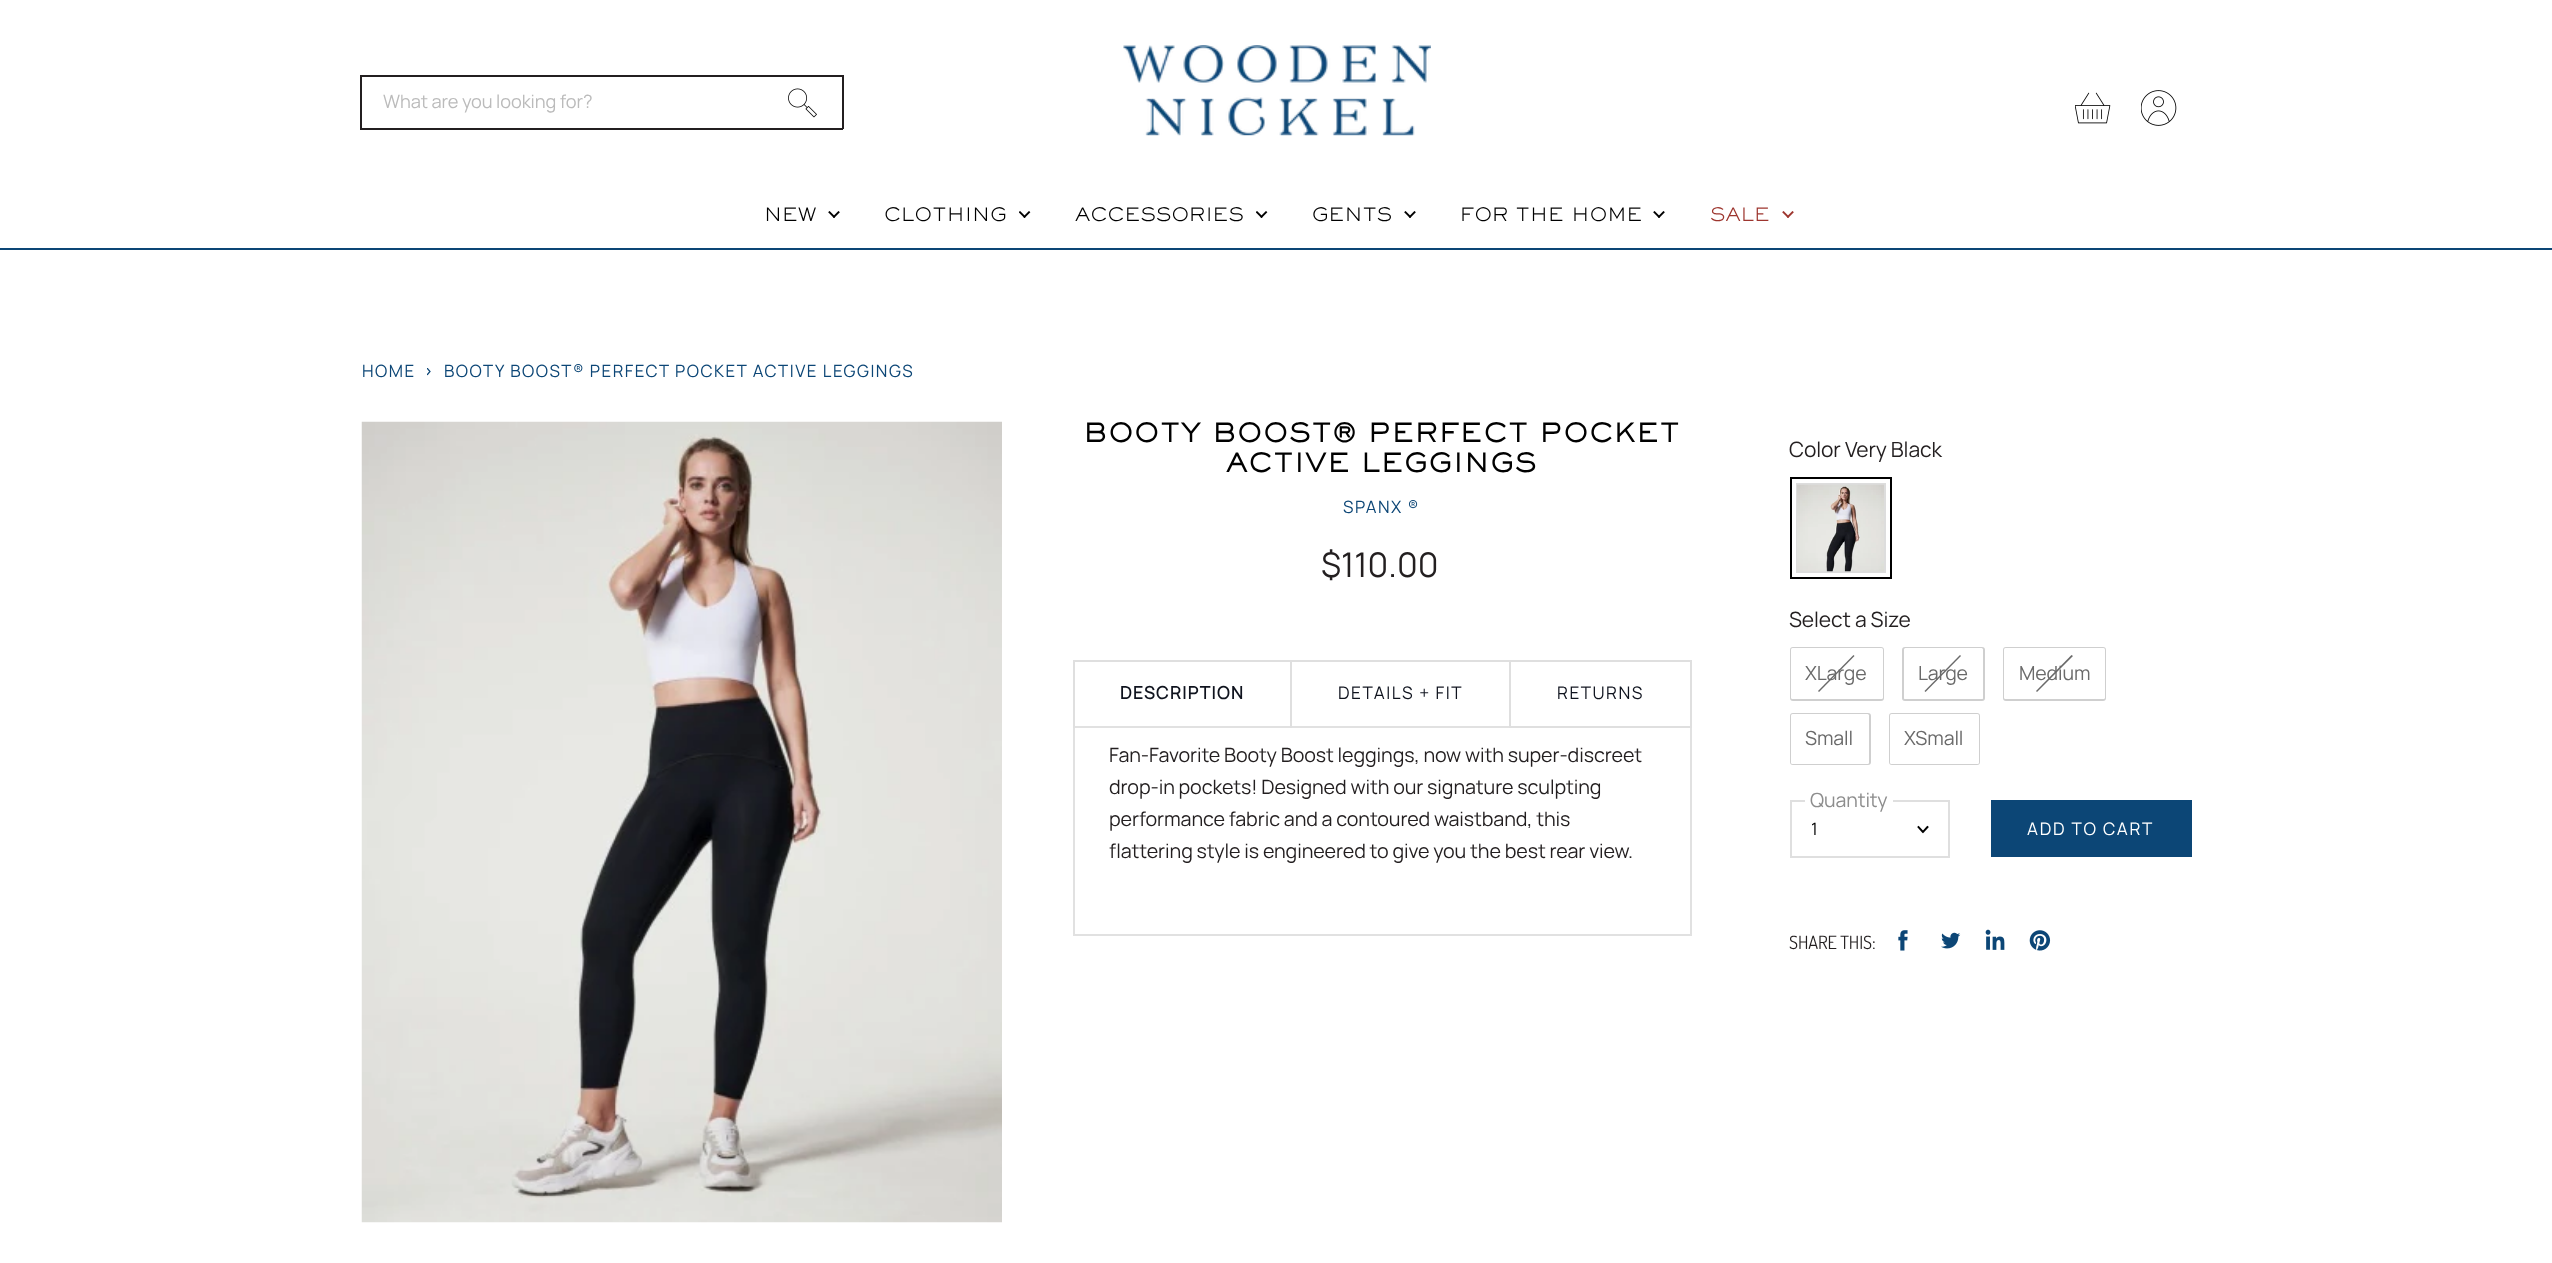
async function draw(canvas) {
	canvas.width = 2552;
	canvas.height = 1263;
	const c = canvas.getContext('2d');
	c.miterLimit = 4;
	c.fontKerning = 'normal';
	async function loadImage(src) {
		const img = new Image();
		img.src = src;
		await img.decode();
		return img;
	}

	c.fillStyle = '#fff';
	c.fillRect(0, 0, 2552, 1263);
	for (const [x, y, w, h, color] of [
		[0, 248, 2552, 2, '#0c4676'],
		[360, 75, 483, 2, '#231f20'],
		[842, 75, 2, 54, '#231f20'],
		[360, 128, 483, 2, '#231f20'],
	]) {
		c.fillStyle = color;
		c.fillRect(x, y, w, h);
	}
	c.drawImage(await loadImage('img1.png'), 788, 88, 29, 30);
	c.fillRect(360, 75, 2, 54);
	c.letterSpacing = '-0.1px';
	c.font = '200 18.25px Manrope';
	c.fillStyle = '#bbb';
	c.fillText('What are you looking for?', 383, 108);
	c.drawImage(await loadImage('img2.png'), 1123, 45, 308, 91);
	c.drawImage(await loadImage('img3.png'), 2075, 92, 36, 32);
	c.drawImage(await loadImage('img4.png'), 2141, 90, 36, 36);
	c.letterSpacing = '0.25px';
	c.font = '300 18.25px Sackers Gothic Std';
	c.fillStyle = '#000';
	c.fillText('NEW', 764, 221);
	c.drawImage(await loadImage('img5.png'), 828, 211, 12, 7);
	c.fillText('CLOTHING', 884, 221);
	c.drawImage(await loadImage('img6.png'), 1019, 211, 12, 7);
	c.fillText('ACCESSORIES', 1075, 221);
	c.drawImage(await loadImage('img6.png'), 1256, 211, 12, 7);
	c.fillText('GENTS', 1312, 221);
	c.drawImage(await loadImage('img5.png'), 1404, 211, 12, 7);
	c.fillText('FOR THE HOME', 1460, 221);
	c.drawImage(await loadImage('img5.png'), 1653, 211, 12, 7);
	c.fillStyle = '#9d352e';
	c.fillText('SALE', 1710, 221);
	c.drawImage(await loadImage('img7.png'), 1782, 211, 12, 7);
	c.letterSpacing = '1.5px';
	c.font = '200 16.9px Manrope';
	c.fillStyle = '#0c4676';
	c.fillText('HOME', 362, 377);
	c.save();
	c.beginPath();
	c.moveTo(427, 375.5);
	c.lineTo(427, 368);
	c.lineTo(431.5, 368);
	c.lineTo(431.5, 375.5);
	c.closePath();
	c.clip();
	c.beginPath();
	c.moveTo(427, 375);
	c.lineTo(430, 371.5);
	c.lineTo(427, 368);
	c.strokeStyle = '#0c4676';
	c.lineWidth = 1.2;
	c.stroke();
	c.restore();
	c.fillText('BOOTY BOOST® PERFECT POCKET ACTIVE LEGGINGS', 444, 377);
	c.drawImage(await loadImage('img8.png'), 361, 421, 641, 802);
	c.font = 'bold 25.3px Sackers Gothic Std';
	c.fillStyle = '#000';
	c.fillText('BOOTY BOOST® PERFECT POCKET', 1084, 442);
	c.fillText('ACTIVE LEGGINGS', 1226, 472);
	c.font = '200 16.9px Manrope';
	c.fillStyle = '#0c4676';
	c.fillText('SPANX ®', 1343, 513);
	c.letterSpacing = '0px';
	c.font = '200 34px Manrope';
	c.fillStyle = '#231f20';
	c.fillText('$110.00', 1321, 577);
	c.fillStyle = '#dfdfdf';
	c.fillRect(1073, 660, 436, 2);
	c.strokeStyle = '#e1e1e1';
	c.lineWidth = 2;
	c.strokeRect(1074, 727, 617, 208);
	c.fillRect(1073, 660, 2, 68);
	c.letterSpacing = '1.5px';
	c.font = 'bold 17.25px Manrope';
	c.fillStyle = '#0f131e';
	c.fillText('DESCRIPTION', 1120, 699);
	c.fillStyle = '#dfdfdf';
	c.fillRect(1290, 660, 2, 68);
	c.font = '200 17.25px Manrope';
	c.fillStyle = '#0f131e';
	c.fillText('DETAILS + FIT', 1338, 699);
	c.strokeStyle = '#dfdfdf';
	c.strokeRect(1510, 661, 181, 66);
	c.fillText('RETURNS', 1557, 699);
	c.letterSpacing = '-0.1px';
	c.font = '200 19.7px Manrope';
	c.fillStyle = '#231f20';
	for (const [text, x, y] of [
		['Fan-Favorite Booty Boost leggings, now with super-discreet', 1109, 762],
		['drop-in pockets! Designed with our signature sculpting', 1109, 794],
		['performance fabric and a contoured waistband, this', 1109, 826],
		['flattering style is engineered to give you the best rear view.', 1109, 858],
	]) {
		c.fillText(text, x, y);
	}
	c.font = '200 21px Manrope';
	c.fillText('Color Very Black', 1789, 457);
	c.strokeStyle = '#000';
	c.strokeRect(1791, 478, 100, 100);
	c.strokeStyle = '#ddd';
	c.strokeRect(1797, 484, 88, 88);
	c.drawImage(await loadImage('img9.png'), 1797, 484, 87, 88);
	c.fillText('Select a Size', 1789, 627);
	c.beginPath();
	c.roundRect(1791, 648, 92, 52, 2);
	c.strokeStyle = '#cfcfcf';
	c.stroke();
	c.fillStyle = '#fff';
	c.beginPath();
	c.roundRect(1791, 648, 92, 51, 1.5);
	c.fill();
	c.fillStyle = '#6a6a6a';
	c.beginPath();
	c.moveTo(1853.5, 655);
	c.lineTo(1854.5, 656);
	c.lineTo(1819, 692);
	c.lineTo(1818, 691);
	c.closePath();
	c.fill();
	c.font = '200 19.5px Manrope';
	c.fillText('XLarge', 1805, 680);
	c.beginPath();
	c.roundRect(1903, 648, 81, 52, 2);
	c.stroke();
	c.fillStyle = '#fff';
	c.beginPath();
	c.roundRect(1904, 648, 79, 51, 1.5);
	c.fill();
	c.fillStyle = '#6a6a6a';
	c.beginPath();
	c.moveTo(1960, 655);
	c.lineTo(1961, 656);
	c.lineTo(1925.5, 692);
	c.lineTo(1924.5, 691);
	c.closePath();
	c.fill();
	c.fillText('Large', 1918, 680);
	c.beginPath();
	c.roundRect(2004, 648, 101, 52, 2);
	c.stroke();
	c.fillStyle = '#fff';
	c.beginPath();
	c.roundRect(2004, 648, 101, 51, 1.5);
	c.fill();
	c.fillStyle = '#6a6a6a';
	c.beginPath();
	c.moveTo(2071.5, 655);
	c.lineTo(2073, 656);
	c.lineTo(2037, 692);
	c.lineTo(2036, 691);
	c.closePath();
	c.fill();
	c.fillText('Medium', 2019, 680);
	c.beginPath();
	c.roundRect(1791, 714, 79, 50, 2);
	c.stroke();
	c.fillStyle = '#fff';
	c.beginPath();
	c.roundRect(1791, 714, 78, 50, 1.5);
	c.fill();
	c.fillStyle = '#6a6a6a';
	c.fillText('Small', 1805, 745);
	c.beginPath();
	c.roundRect(1890, 714, 89, 50, 2);
	c.stroke();
	c.fillStyle = '#fff';
	c.beginPath();
	c.roundRect(1890, 714, 89, 50, 1.5);
	c.fill();
	c.fillStyle = '#6a6a6a';
	c.fillText('XSmall', 1904, 745);
	c.strokeStyle = '#dfdfdf';
	c.strokeRect(1791, 801, 158, 56);
	c.fillStyle = '#fff';
	c.fillRect(1805, 800, 88, 2);
	c.fillStyle = '#8d8d8d';
	c.fillText('Quantity', 1810, 807);
	c.letterSpacing = '1.5px';
	c.font = '200 16.9px Manrope';
	c.fillStyle = '#000';
	c.fillText('1', 1811, 835);
	c.beginPath();
	c.moveTo(1923, 832);
	c.lineTo(1927.5, 827);
	c.moveTo(1923, 832);
	c.lineTo(1918.5, 827);
	c.strokeStyle = '#000';
	c.lineWidth = 1.9;
	c.lineCap = 'square';
	c.stroke();
	c.fillStyle = '#0c4676';
	c.fillRect(1991, 800, 201, 57);
	c.letterSpacing = '1.75px';
	c.font = '200 17.25px Manrope';
	c.fillStyle = '#fff';
	c.fillText('ADD TO CART', 2027, 835);
	c.letterSpacing = '-0.1px';
	c.font = '18.25px Dosis';
	c.fillStyle = '#231f20';
	c.fillText('SHARE THIS:', 1789, 949);
	c.drawImage(await loadImage('img10.png'), 1898, 930, 10, 21);
	c.drawImage(await loadImage('img11.png'), 1941, 932, 20, 17);
	c.drawImage(await loadImage('img12.png'), 1985, 929, 20, 21);
	c.drawImage(await loadImage('img13.png'), 2029, 930, 22, 21);
}

draw(document.querySelector('canvas'));
